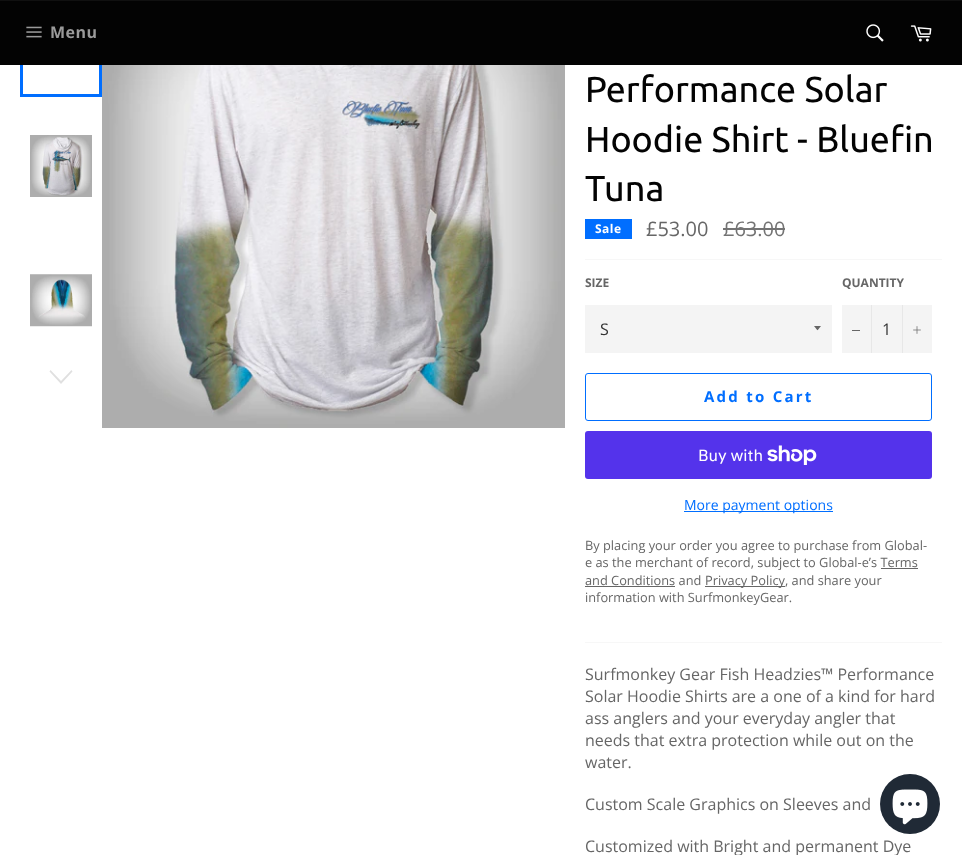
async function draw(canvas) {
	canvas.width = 962;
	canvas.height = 855;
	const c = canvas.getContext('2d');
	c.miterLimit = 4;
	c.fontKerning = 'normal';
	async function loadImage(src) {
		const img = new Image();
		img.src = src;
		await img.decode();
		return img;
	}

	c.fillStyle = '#fff';
	c.fillRect(0, 0, 962, 855);
	c.strokeStyle = '#006eff';
	c.lineWidth = 3;
	c.strokeRect(21.5, -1.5, 79, 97);
	c.fillStyle = '#030303';
	c.fillRect(0, 1, 962, 64);
	c.fillStyle = '#101010';
	c.fillRect(0, 0, 962, 1);
	c.drawImage(await loadImage('img1.png'), 26, 26, 16, 12);
	c.letterSpacing = '0.5px';
	c.font = 'bold 16px Open Sans';
	c.fillStyle = '#9a9a9a';
	c.fillText('Menu', 50, 38);
	c.drawImage(await loadImage('img2.png'), 866, 24, 18, 18);
	c.drawImage(await loadImage('img3.png'), 910, 25, 22, 17);
	c.drawImage(await loadImage('img4.png'), 30, 135, 62, 62);
	c.drawImage(await loadImage('img5.png'), 30, 274, 62, 53);
	c.fillStyle = '#e0e0e0';
	c.beginPath();
	c.moveTo(71.5, 370);
	c.lineTo(72.5, 371.5);
	c.lineTo(61, 384);
	c.lineTo(49.5, 371.5);
	c.lineTo(50.5, 370);
	c.lineTo(61, 381);
	c.closePath();
	c.fill();
	c.drawImage(await loadImage('img6.png'), 102, 65, 463, 363);
	c.letterSpacing = '0px';
	c.font = '36px Ubuntu';
	c.fillStyle = '#030303';
	for (const [text, x, y] of [
		['Performance Solar', 585, 102],
		['Hoodie Shirt - Bluefin', 585, 152],
		['Tuna', 585, 201],
	]) {
		c.fillText(text, x, y);
	}
	c.fillStyle = '#006eff';
	c.fillRect(585, 219, 47, 20);
	c.letterSpacing = '0.5px';
	c.font = 'bold 12px Open Sans';
	c.fillStyle = '#fff';
	c.fillText('Sale', 595, 233);
	c.letterSpacing = '0px';
	c.font = '20px Open Sans';
	c.fillStyle = '#666';
	c.fillText('£53.00', 646, 236);
	c.fillStyle = '#737373';
	c.fillText('£63.00', 723, 236);
	c.fillRect(723, 228, 62, 2);
	c.fillStyle = '#f7f7f7';
	c.fillRect(585, 259, 357, 1);
	c.font = 'bold 12px Open Sans';
	c.fillStyle = '#666';
	c.fillText('SIZE', 585, 287);
	c.fillStyle = '#f4f4f4';
	c.fillRect(585, 305, 247, 48);
	c.fillStyle = '#666';
	c.beginPath();
	c.moveTo(814, 326);
	c.bezierCurveTo(818.5, 331.5, 816.5, 331.5, 821, 326);
	c.closePath();
	c.fill();
	c.font = '16px Open Sans';
	c.fillStyle = '#333';
	c.fillText('S', 600, 335);
	c.font = 'bold 12px Open Sans';
	c.fillStyle = '#666';
	c.fillText('QUANTITY', 842, 287);
	for (const [x, y, w, h, color] of [
		[842, 305, 90, 48, '#f4f4f4'],
		[871, 305, 1, 48, '#e7e7e7'],
		[852, 330, 8, 1, '#666'],
	]) {
		c.fillStyle = color;
		c.fillRect(x, y, w, h);
	}
	c.font = '16px Open Sans';
	c.fillStyle = '#333';
	c.fillText('1', 882, 335);
	c.fillStyle = '#e7e7e7';
	c.fillRect(902, 305, 1, 48);
	c.drawImage(await loadImage('img7.png'), 913, 326, 8, 8);
	c.beginPath();
	c.roundRect(585.5, 373.5, 346, 47, 2.5);
	c.lineWidth = 1;
	c.stroke();
	c.letterSpacing = '2.25px';
	c.font = 'bold 15px Open Sans';
	c.fillStyle = '#006eff';
	c.fillText('Add to Cart', 704, 402);
	c.fillStyle = '#5433eb';
	c.beginPath();
	c.roundRect(585, 431, 347, 48, 3);
	c.fill();
	c.letterSpacing = '0px';
	c.font = '16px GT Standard';
	c.fillStyle = '#fff';
	c.fillText('Buy with', 698, 461);
	c.drawImage(await loadImage('img8.png'), 767, 445, 50, 20);
	c.fillStyle = '#006eff';
	c.fillRect(684, 511, 149, 1);
	c.font = '14px Open Sans';
	c.fillText('More payment options', 684, 510);
	c.font = '12.8px Open Sans';
	c.fillStyle = '#666';
	for (const [text, x, y] of [
		['By placing your order you agree to purchase from Global-', 585, 550],
		['e as the merchant of record, subject to Global-e’s Terms', 585, 567],
		['and Conditions and', 585, 585],
	]) {
		c.fillText(text, x, y);
	}
	for (const [x, y, w, h, color] of [
		[881, 568, 37, 1, '#666'],
		[585, 586, 90, 1, '#666'],
		[705, 586, 80, 1, '#666'],
	]) {
		c.fillStyle = color;
		c.fillRect(x, y, w, h);
	}
	c.fillText('Privacy Policy, and share your', 705, 585);
	c.fillText('information with SurfmonkeyGear.', 585, 602);
	c.fillStyle = '#f7f7f7';
	c.fillRect(585, 642, 357, 1);
	c.font = '16px Open Sans';
	c.fillStyle = '#666';
	for (const [text, x, y] of [
		['Surfmonkey Gear Fish Headzies™ Performance', 585, 680],
		['Solar Hoodie Shirts are a one of a kind for hard', 585, 702],
		['ass anglers and your everyday angler that', 585, 724],
		['needs that extra protection while out on the', 585, 746],
		['water.', 585, 768],
		['Custom Scale Graphics on Sleeves and', 585, 810],
		['Customized with Bright and permanent Dye', 585, 852],
	]) {
		c.fillText(text, x, y);
	}
	c.fillStyle = '#202a36';
	c.beginPath();
	c.arc(910, 804, 30, 0, 2 * Math.PI);
	c.fill();
	c.drawImage(await loadImage('img9.png'), 892, 789, 36, 36);
}

draw(document.querySelector('canvas'));
